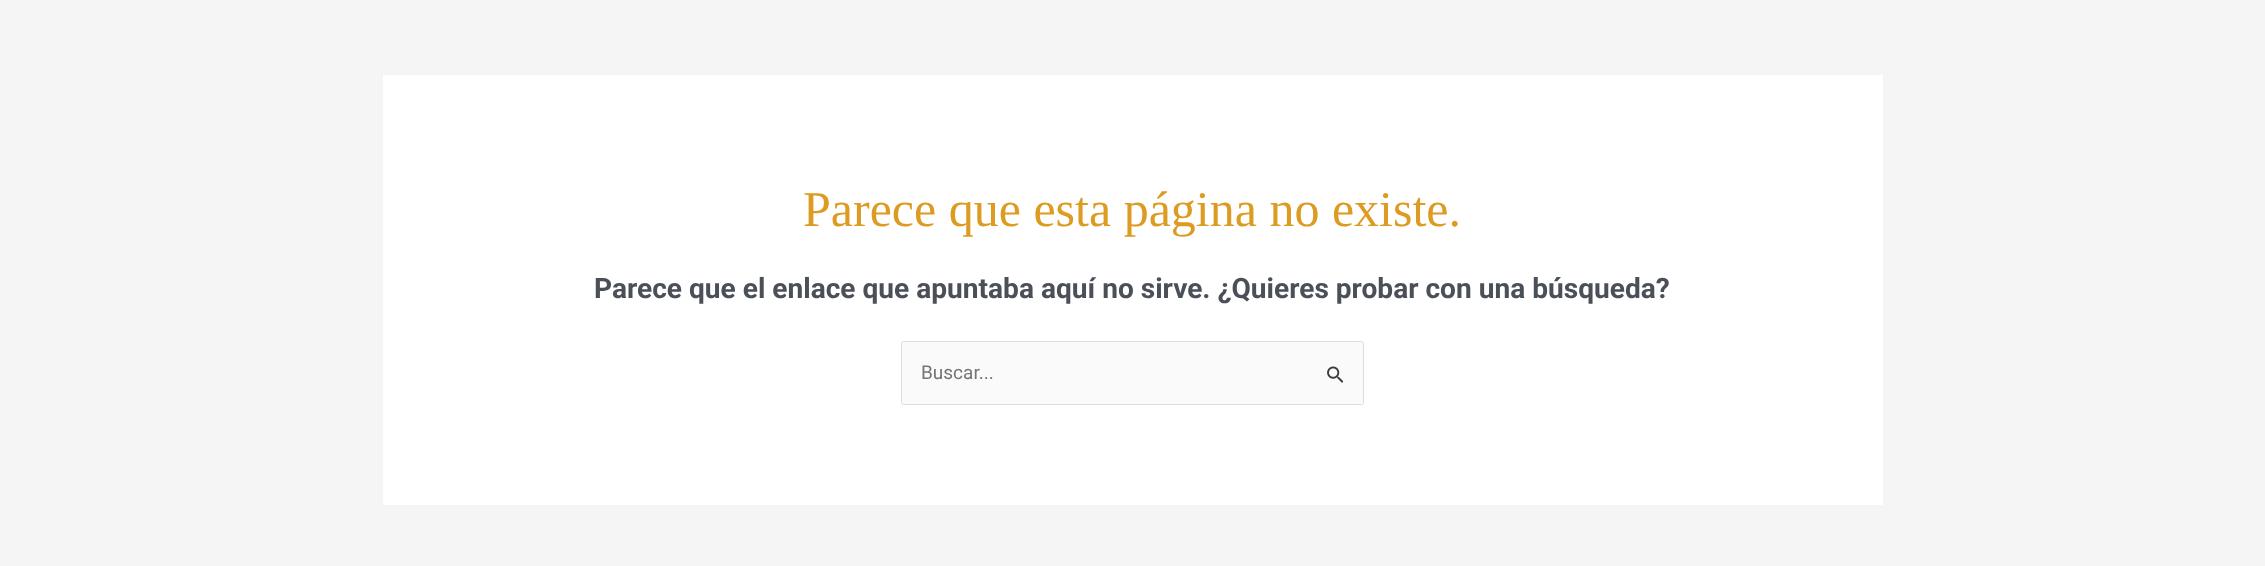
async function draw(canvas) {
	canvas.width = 2265;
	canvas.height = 566;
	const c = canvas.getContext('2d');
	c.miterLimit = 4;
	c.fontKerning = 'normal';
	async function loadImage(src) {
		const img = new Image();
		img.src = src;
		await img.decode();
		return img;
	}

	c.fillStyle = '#f5f5f5';
	c.fillRect(0, 0, 2265, 566);
	c.fillStyle = '#fff';
	c.fillRect(383, 75, 1500, 430);
	c.font = '50px Liberation Serif';
	c.fillStyle = '#dc9b21';
	c.fillText('Parece que esta página no existe.', 803, 226);
	c.font = 'bold 28.1px Roboto';
	c.fillStyle = '#4b4f58';
	c.fillText('Parece que el enlace que apuntaba aquí no sirve. ¿Quieres probar con una búsqueda?', 594, 298);
	c.fillStyle = '#fafafa';
	c.beginPath();
	c.roundRect(901.5, 341.5, 462, 63, 2);
	c.fill();
	c.strokeStyle = '#ddd';
	c.stroke();
	c.font = '19px Roboto';
	c.fillStyle = '#757575';
	c.fillText('Buscar...', 921, 379);
	c.drawImage(await loadImage('img1.png'), 1327, 366, 16, 17);
}

draw(document.querySelector('canvas'));
